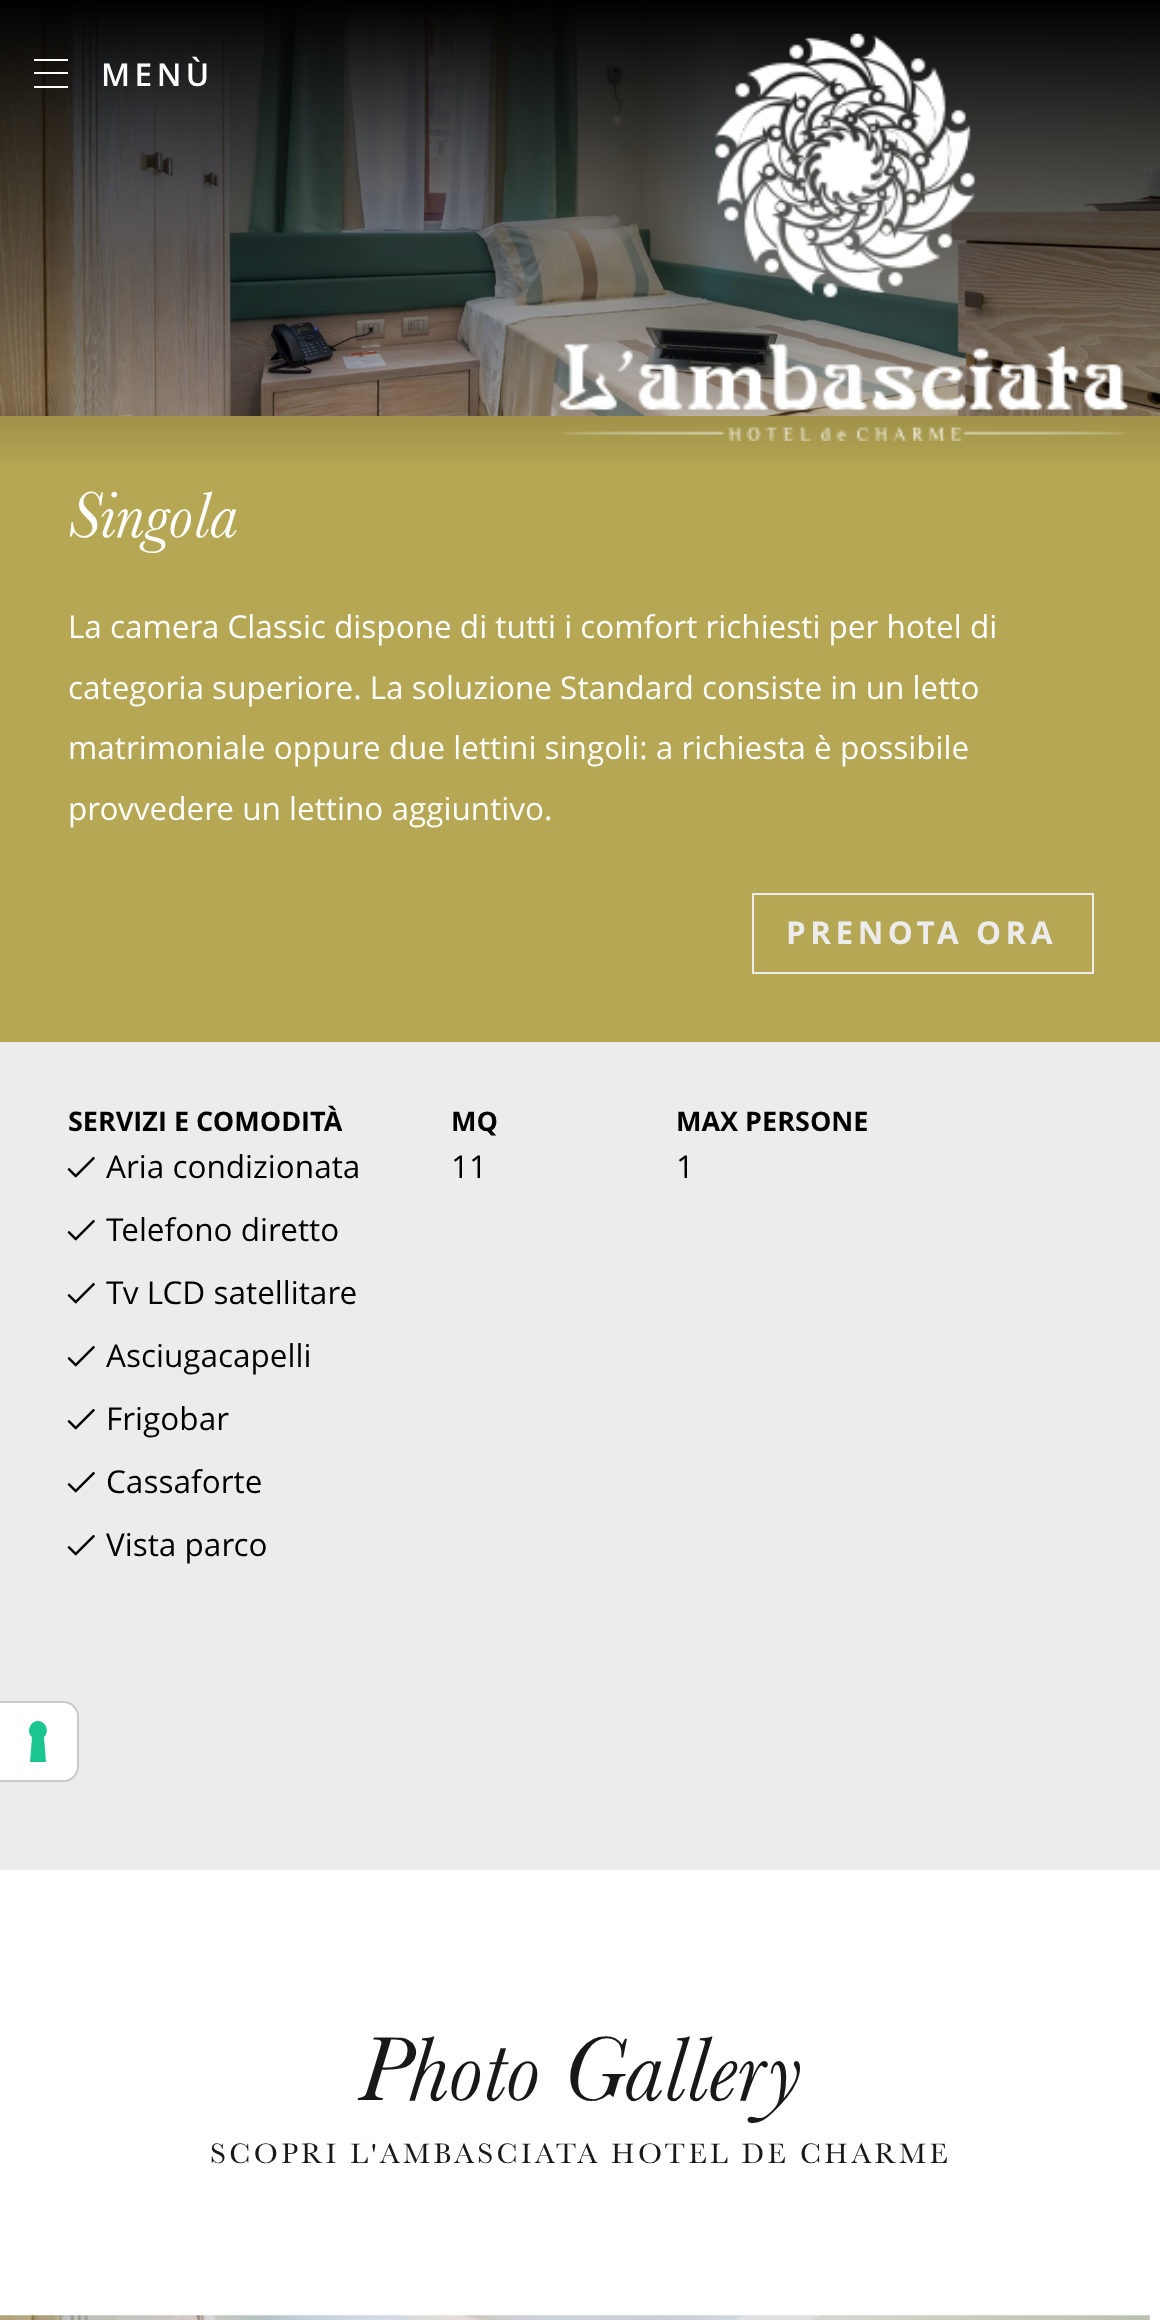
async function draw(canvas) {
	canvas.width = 1160;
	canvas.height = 2320;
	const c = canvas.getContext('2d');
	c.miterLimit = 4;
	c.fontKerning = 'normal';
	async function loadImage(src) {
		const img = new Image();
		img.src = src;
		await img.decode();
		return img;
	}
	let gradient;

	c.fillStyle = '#fff';
	c.fillRect(0, 0, 1160, 2320);
	c.fillStyle = '#ececec';
	c.fillRect(0, 1042, 1160, 828);
	c.beginPath();
	c.moveTo(-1, 1702);
	c.lineTo(63, 1702);
	c.bezierCurveTo(71.5, 1702, 78, 1708.5, 78, 1717);
	c.lineTo(78, 1766);
	c.bezierCurveTo(78, 1774.5, 71.5, 1781, 63, 1781);
	c.lineTo(-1, 1781);
	c.closePath();
	c.strokeStyle = '#c9c9c9';
	c.lineWidth = 2;
	c.stroke();
	c.fillStyle = '#fff';
	c.beginPath();
	c.roundRect(0, 1703, 77, 77, [0, 14, 14, 0]);
	c.fill();
	c.fillStyle = '#1cc691';
	c.beginPath();
	c.moveTo(38, 1721);
	c.bezierCurveTo(46, 1721, 50, 1732, 44, 1737);
	c.lineTo(46, 1762);
	c.lineTo(30, 1762);
	c.lineTo(32, 1737);
	c.bezierCurveTo(26, 1732, 30, 1721, 38, 1721);
	c.closePath();
	c.fill('evenodd');
	c.drawImage(await loadImage('img2.png'), 0, 3, 1160, 413);
	c.fillStyle = '#b6a754';
	c.fillRect(0, 416, 1160, 626);
	gradient = c.createLinearGradient(581, 0, 581, 475);
	gradient.addColorStop(0, '#000');
	gradient.addColorStop(1, '#00000000');
	c.fillStyle = gradient;
	c.fillRect(0, 0, 1160, 465);
	c.fillStyle = '#fff';
	c.fillRect(34, 59, 34, 2);
	c.letterSpacing = '4.5px';
	c.font = '600 31.5px Open Sans';
	c.fillText('MENÙ', 101, 86);
	c.fillRect(34, 72, 34, 2);
	c.fillRect(34, 86, 34, 2);
	c.drawImage(await loadImage('img1.png'), 560, 33, 568, 408);
	c.letterSpacing = '0px';
	c.font = 'italic 67.5px Baskerville';
	c.fillText('Singola', 68, 537);
	c.font = '31.5px Open Sans';
	for (const [text, x, y] of [
		['La camera Classic dispone di tutti i comfort richiesti per hotel di', 68, 638],
		['categoria superiore. La soluzione Standard consiste in un letto', 68, 699],
		['matrimoniale oppure due lettini singoli: a richiesta è possibile', 68, 759],
		['provvedere un lettino aggiuntivo.', 68, 820],
	]) {
		c.fillText(text, x, y);
	}
	c.strokeStyle = '#ececec';
	c.strokeRect(753, 894, 340, 79);
	c.letterSpacing = '4.5px';
	c.font = 'bold 31.5px Open Sans';
	c.fillStyle = '#ececec';
	c.fillText('PRENOTA ORA', 786, 944);
	c.letterSpacing = '0px';
	c.font = 'bold 27px Open Sans';
	c.fillStyle = '#000';
	c.fillText('SERVIZI E COMODITÀ', 68, 1131);
	c.drawImage(await loadImage('img3.png'), 67, 1156, 28, 22);
	c.font = '31.5px Open Sans';
	c.fillText('Aria condizionata', 106, 1178);
	c.drawImage(await loadImage('img3.png'), 67, 1219, 28, 22);
	c.fillText('Telefono diretto', 106, 1241);
	c.drawImage(await loadImage('img3.png'), 67, 1282, 28, 22);
	c.fillText('Tv LCD satellitare', 106, 1304);
	c.drawImage(await loadImage('img3.png'), 67, 1345, 28, 22);
	c.fillText('Asciugacapelli', 106, 1367);
	c.drawImage(await loadImage('img3.png'), 67, 1408, 28, 22);
	c.fillText('Frigobar', 106, 1430);
	c.drawImage(await loadImage('img3.png'), 67, 1471, 28, 22);
	c.fillText('Cassaforte', 106, 1493);
	c.drawImage(await loadImage('img3.png'), 67, 1534, 28, 22);
	c.fillText('Vista parco', 106, 1556);
	c.font = 'bold 27px Open Sans';
	c.fillText('MQ', 451, 1131);
	c.font = '31.5px Open Sans';
	c.fillText('11', 451, 1178);
	c.font = 'bold 27px Open Sans';
	c.fillText('MAX PERSONE', 676, 1131);
	c.font = '31.5px Open Sans';
	c.fillText('1', 676, 1178);
	c.font = 'italic 94.5px Baskerville';
	c.fillStyle = '#181818';
	c.fillText('Photo Gallery', 358, 2100);
	c.letterSpacing = '3.4px';
	c.font = '29.25px Baskerville';
	c.fillText('SCOPRI L\'AMBASCIATA HOTEL DE CHARME', 210, 2163);
	c.drawImage(await loadImage('img4.png'), 0, 2315, 1150, 5);
}

draw(document.querySelector('canvas'));
